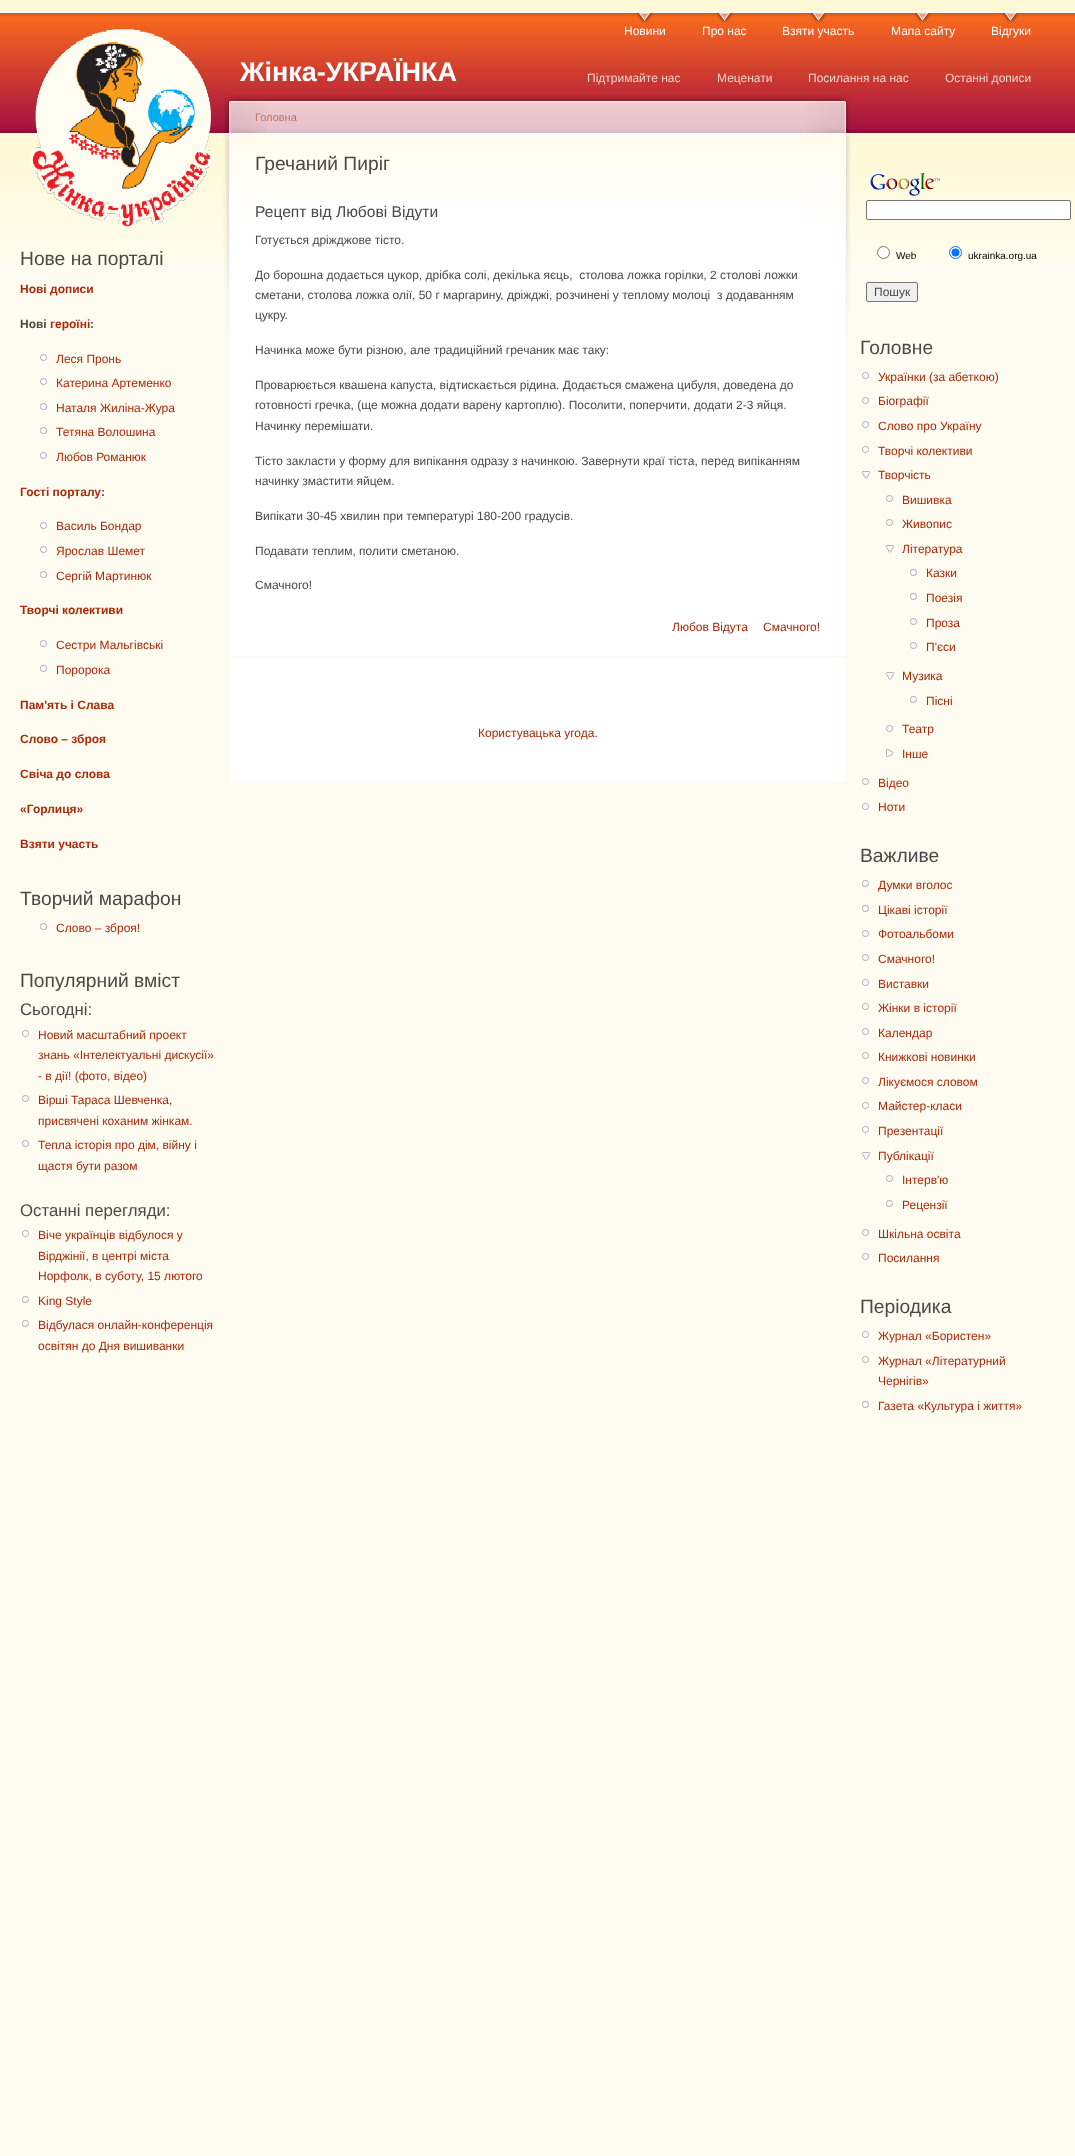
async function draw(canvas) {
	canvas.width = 1075;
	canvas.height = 2156;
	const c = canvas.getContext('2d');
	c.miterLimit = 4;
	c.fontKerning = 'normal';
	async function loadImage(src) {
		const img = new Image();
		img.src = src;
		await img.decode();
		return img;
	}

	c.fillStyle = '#fefcf1';
	c.fillRect(0, 0, 1075, 2156);
	c.fillStyle = '#fffadd';
	c.fillRect(0, 0, 1075, 1);
	c.fillStyle = '#fff9d8';
	c.fillRect(0, 1, 1075, 11);
	c.drawImage(await loadImage('img1.png'), 0, 12, 1075, 251);
	c.drawImage(await loadImage('img2.png'), 636, 13, 17, 10);
	c.font = '12px Liberation Sans';
	c.fillStyle = '#fff';
	c.fillText('Новини', 624, 35);
	c.drawImage(await loadImage('img2.png'), 716, 13, 17, 10);
	c.fillText('Про нас', 702, 35);
	c.drawImage(await loadImage('img2.png'), 810, 13, 17, 10);
	c.fillText('Взяти участь', 782, 35);
	c.drawImage(await loadImage('img2.png'), 914, 13, 17, 10);
	c.fillText('Мапа сайту', 891, 35);
	c.drawImage(await loadImage('img2.png'), 1002, 13, 17, 10);
	c.fillText('Відгуки', 991, 35);
	c.drawImage(await loadImage('img3.png'), 29, 29, 185, 201);
	c.font = 'bold 27px Liberation Sans';
	c.fillText('Жінка-УКРАЇНКА', 240, 81);
	c.font = '12px Liberation Sans';
	c.fillStyle = '#ead4ce';
	for (const [text, x, y] of [
		['Підтримайте нас', 587, 82],
		['Меценати', 717, 82],
		['Посилання на нас', 808, 82],
		['Останні дописи', 945, 82],
	]) {
		c.fillText(text, x, y);
	}
	c.font = '19.25px Liberation Sans';
	c.fillStyle = '#494949';
	c.fillText('Нове на порталі', 20, 265);
	c.font = 'bold 12px Liberation Sans';
	c.fillStyle = '#a9290a';
	c.fillText('Нові дописи', 20, 293);
	c.fillStyle = '#494949';
	c.fillText('Нові', 20, 328);
	c.fillStyle = '#a9290a';
	c.fillText('героїні', 50, 328);
	c.fillStyle = '#494949';
	c.fillText(':', 90, 328);
	c.drawImage(await loadImage('img4.png'), 40, 354, 7, 7);
	c.font = '12px Liberation Sans';
	c.fillStyle = '#a9290a';
	c.fillText('Леся Пронь', 56, 363);
	c.drawImage(await loadImage('img4.png'), 40, 378, 7, 7);
	c.fillText('Катерина Артеменко', 56, 387);
	c.drawImage(await loadImage('img4.png'), 40, 403, 7, 7);
	c.fillText('Наталя Жиліна-Жура', 56, 412);
	c.drawImage(await loadImage('img4.png'), 40, 427, 7, 7);
	c.fillText('Тетяна Волошина', 56, 436);
	c.drawImage(await loadImage('img4.png'), 40, 452, 7, 7);
	c.fillText('Любов Романюк', 56, 461);
	c.font = 'bold 12px Liberation Sans';
	c.fillText('Гості порталу', 20, 496);
	c.fillStyle = '#494949';
	c.fillText(':', 101, 496);
	c.drawImage(await loadImage('img4.png'), 40, 522, 7, 7);
	c.font = '12px Liberation Sans';
	c.fillStyle = '#a9290a';
	c.fillText('Василь Бондар', 56, 530);
	c.drawImage(await loadImage('img4.png'), 40, 546, 7, 7);
	c.fillText('Ярослав Шемет', 56, 555);
	c.drawImage(await loadImage('img4.png'), 40, 571, 7, 7);
	c.fillText('Сергій Мартинюк', 56, 580);
	c.font = 'bold 12px Liberation Sans';
	c.fillText('Творчі колективи', 20, 614);
	c.drawImage(await loadImage('img4.png'), 40, 640, 7, 7);
	c.font = '12px Liberation Sans';
	c.fillText('Сестри Мальгівські', 56, 649);
	c.drawImage(await loadImage('img4.png'), 40, 665, 7, 7);
	c.fillText('Поророка', 56, 674);
	c.font = 'bold 12px Liberation Sans';
	for (const [text, x, y] of [
		['Пам\'ять і Слава', 20, 709],
		['Слово – зброя', 20, 743],
		['Свіча до слова', 20, 778],
		['«Горлиця»', 20, 813],
		['Взяти участь', 20, 848],
	]) {
		c.fillText(text, x, y);
	}
	c.font = '19.25px Liberation Sans';
	c.fillStyle = '#494949';
	c.fillText('Творчий марафон', 20, 905);
	c.drawImage(await loadImage('img4.png'), 40, 923, 7, 7);
	c.font = '12px Liberation Sans';
	c.fillStyle = '#a9290a';
	c.fillText('Слово – зброя!', 56, 932);
	c.font = '19.25px Liberation Sans';
	c.fillStyle = '#494949';
	c.fillText('Популярний вміст', 20, 987);
	c.font = '16.75px Liberation Sans';
	c.fillText('Сьогодні:', 20, 1015);
	c.drawImage(await loadImage('img4.png'), 22, 1030, 7, 7);
	c.font = '12px Liberation Sans';
	c.fillStyle = '#a9290a';
	for (const [text, x, y] of [
		['Новий масштабний проект', 38, 1039],
		['знань «Інтелектуальні дискусії»', 38, 1059],
		['- в дії! (фото, відео)', 38, 1080],
	]) {
		c.fillText(text, x, y);
	}
	c.drawImage(await loadImage('img4.png'), 22, 1095, 7, 7);
	c.fillText('Вірші Тараса Шевченка,', 38, 1104);
	c.fillText('присвячені коханим жінкам.', 38, 1125);
	c.drawImage(await loadImage('img4.png'), 22, 1140, 7, 7);
	c.fillText('Тепла історія про дім, війну і', 38, 1149);
	c.fillText('щастя бути разом', 38, 1170);
	c.font = '16.75px Liberation Sans';
	c.fillStyle = '#494949';
	c.fillText('Останні перегляди:', 20, 1216);
	c.drawImage(await loadImage('img4.png'), 22, 1230, 7, 7);
	c.font = '12px Liberation Sans';
	c.fillStyle = '#a9290a';
	for (const [text, x, y] of [
		['Віче українців відбулося у', 38, 1239],
		['Вірджінії, в центрі міста', 38, 1260],
		['Норфолк, в суботу, 15 лютого', 38, 1280],
	]) {
		c.fillText(text, x, y);
	}
	c.drawImage(await loadImage('img4.png'), 22, 1296, 7, 7);
	c.fillText('King Style', 38, 1305);
	c.drawImage(await loadImage('img4.png'), 22, 1320, 7, 7);
	c.fillText('Відбулася онлайн-конференція', 38, 1329);
	c.fillText('освітян до Дня вишиванки', 38, 1350);
	c.fillStyle = '#fff';
	c.fillRect(230, 204, 615, 578);
	c.drawImage(await loadImage('img5.png'), 230, 92, 615, 112);
	c.drawImage(await loadImage('img6.png'), 807, 96, 44, 235);
	c.drawImage(await loadImage('img7.png'), 223, 96, 44, 241);
	c.font = '11px Liberation Sans';
	c.fillStyle = '#c17357';
	c.fillText('Головна', 255, 121);
	c.font = '19.25px Liberation Sans';
	c.fillStyle = '#494949';
	c.fillText('Гречаний Пиріг', 255, 170);
	c.fillStyle = '#fcfaec';
	c.fillRect(229, 656, 617, 1);
	c.font = '15.6px Liberation Sans';
	c.fillStyle = '#494949';
	c.fillText('Рецепт від Любові Відути', 255, 217);
	c.font = '12px Liberation Sans';
	for (const [text, x, y] of [
		['Готується дріжджове тісто.', 255, 244],
		['До борошна додається цукор, дрібка солі, декілька яєць,  столова ложка горілки, 2 столові ложки', 255, 279],
		['сметани, столова ложка олії, 50 г маргарину, дріжджі, розчинені у теплому молоці  з додаванням', 255, 299],
		['цукру.', 255, 319],
		['Начинка може бути різною, але традиційний гречаник має таку:', 255, 354],
		['Проварюється квашена капуста, відтискається рідина. Додається смажена цибуля, доведена до', 255, 389],
		['готовності гречка, (ще можна додати варену картоплю). Посолити, поперчити, додати 2-3 яйця.', 255, 409],
		['Начинку перемішати.', 255, 430],
		['Тісто закласти у форму для випікання одразу з начинкою. Завернути краї тіста, перед випіканням', 255, 465],
		['начинку змастити яйцем.', 255, 485],
		['Випікати 30-45 хвилин при температурі 180-200 градусів.', 255, 520],
		['Подавати теплим, полити сметаною.', 255, 555],
		['Смачного!', 255, 589],
	]) {
		c.fillText(text, x, y);
	}
	c.fillStyle = '#a9290a';
	for (const [text, x, y] of [
		['Любов Відута', 672, 631],
		['Смачного!', 763, 631],
		['Користувацька угода.', 478, 737],
	]) {
		c.fillText(text, x, y);
	}
	c.drawImage(await loadImage('img8.png'), 870, 173, 70, 23);
	c.fillStyle = '#fff';
	c.beginPath();
	c.roundRect(866.5, 200.5, 204, 19, 1.5);
	c.fill();
	c.strokeStyle = '#767676';
	c.stroke();
	c.beginPath();
	c.arc(883.5, 252.5, 6, 0, 2 * Math.PI);
	c.fill();
	c.stroke();
	c.font = '10px Liberation Sans';
	c.fillStyle = '#000';
	c.fillText('Web', 896, 259);
	c.fillStyle = '#fff';
	c.beginPath();
	c.arc(955.5, 252.5, 6, 0, 2 * Math.PI);
	c.fill();
	c.strokeStyle = '#0075ff';
	c.stroke();
	c.fillStyle = '#0075ff';
	c.beginPath();
	c.arc(955.5, 252.5, 4, 0, 2 * Math.PI);
	c.fill();
	c.fillStyle = '#000';
	c.fillText('ukrainka.org.ua', 968, 259);
	c.fillStyle = '#efefef';
	c.beginPath();
	c.roundRect(866.5, 282.5, 51, 19, 1.5);
	c.fill();
	c.strokeStyle = '#767676';
	c.stroke();
	c.font = '12px Liberation Sans';
	c.fillStyle = '#494949';
	c.fillText('Пошук', 874, 296);
	c.font = '19.25px Liberation Sans';
	c.fillText('Головне', 860, 354);
	c.drawImage(await loadImage('img4.png'), 862, 372, 7, 7);
	c.font = '12px Liberation Sans';
	c.fillStyle = '#a9290a';
	c.fillText('Українки (за абеткою)', 878, 381);
	c.drawImage(await loadImage('img4.png'), 862, 397, 7, 7);
	c.fillText('Біографії', 878, 405);
	c.drawImage(await loadImage('img4.png'), 862, 421, 7, 7);
	c.fillText('Слово про Україну', 878, 430);
	c.drawImage(await loadImage('img4.png'), 862, 446, 7, 7);
	c.fillText('Творчі колективи', 878, 455);
	c.drawImage(await loadImage('img9.png'), 861, 471, 10, 8);
	c.fillText('Творчість', 878, 479);
	c.drawImage(await loadImage('img4.png'), 886, 495, 7, 7);
	c.fillText('Вишивка', 902, 504);
	c.drawImage(await loadImage('img4.png'), 886, 519, 7, 7);
	c.fillText('Живопис', 902, 528);
	c.drawImage(await loadImage('img9.png'), 885, 545, 10, 8);
	c.fillText('Література', 902, 553);
	c.drawImage(await loadImage('img4.png'), 910, 569, 7, 7);
	c.fillText('Казки', 926, 577);
	c.drawImage(await loadImage('img4.png'), 910, 593, 7, 7);
	c.fillText('Поезія', 926, 602);
	c.drawImage(await loadImage('img4.png'), 910, 618, 7, 7);
	c.fillText('Проза', 926, 627);
	c.drawImage(await loadImage('img4.png'), 910, 642, 7, 7);
	c.fillText('П\'єси', 926, 651);
	c.drawImage(await loadImage('img9.png'), 885, 672, 10, 8);
	c.fillText('Музика', 902, 680);
	c.drawImage(await loadImage('img4.png'), 910, 696, 7, 7);
	c.fillText('Пісні', 926, 705);
	c.drawImage(await loadImage('img4.png'), 886, 725, 7, 7);
	c.fillText('Театр', 902, 733);
	c.drawImage(await loadImage('img10.png'), 886, 748, 8, 10);
	c.fillText('Інше', 902, 758);
	c.drawImage(await loadImage('img4.png'), 862, 778, 7, 7);
	c.fillText('Відео', 878, 787);
	c.drawImage(await loadImage('img4.png'), 862, 803, 7, 7);
	c.fillText('Ноти', 878, 811);
	c.font = '19.25px Liberation Sans';
	c.fillStyle = '#494949';
	c.fillText('Важливе', 860, 862);
	c.drawImage(await loadImage('img4.png'), 862, 880, 7, 7);
	c.font = '12px Liberation Sans';
	c.fillStyle = '#a9290a';
	c.fillText('Думки вголос', 878, 889);
	c.drawImage(await loadImage('img4.png'), 862, 905, 7, 7);
	c.fillText('Цікаві історії', 878, 914);
	c.drawImage(await loadImage('img4.png'), 862, 930, 7, 7);
	c.fillText('Фотоальбоми', 878, 938);
	c.drawImage(await loadImage('img4.png'), 862, 954, 7, 7);
	c.fillText('Смачного!', 878, 963);
	c.drawImage(await loadImage('img4.png'), 862, 979, 7, 7);
	c.fillText('Виставки', 878, 988);
	c.drawImage(await loadImage('img4.png'), 862, 1003, 7, 7);
	c.fillText('Жінки в історії', 878, 1012);
	c.drawImage(await loadImage('img4.png'), 862, 1028, 7, 7);
	c.fillText('Календар', 878, 1037);
	c.drawImage(await loadImage('img4.png'), 862, 1052, 7, 7);
	c.fillText('Книжкові новинки', 878, 1061);
	c.drawImage(await loadImage('img4.png'), 862, 1077, 7, 7);
	c.fillText('Лікуємося словом', 878, 1086);
	c.drawImage(await loadImage('img4.png'), 862, 1102, 7, 7);
	c.fillText('Майстер-класи', 878, 1110);
	c.drawImage(await loadImage('img4.png'), 862, 1126, 7, 7);
	c.fillText('Презентації', 878, 1135);
	c.drawImage(await loadImage('img9.png'), 861, 1152, 10, 8);
	c.fillText('Публікації', 878, 1160);
	c.drawImage(await loadImage('img4.png'), 886, 1175, 7, 7);
	c.fillText('Інтерв\'ю', 902, 1184);
	c.drawImage(await loadImage('img4.png'), 886, 1200, 7, 7);
	c.fillText('Рецензії', 902, 1209);
	c.drawImage(await loadImage('img4.png'), 862, 1229, 7, 7);
	c.fillText('Шкільна освіта', 878, 1238);
	c.drawImage(await loadImage('img4.png'), 862, 1253, 7, 7);
	c.fillText('Посилання', 878, 1262);
	c.font = '19.25px Liberation Sans';
	c.fillStyle = '#494949';
	c.fillText('Періодика', 860, 1313);
	c.drawImage(await loadImage('img4.png'), 862, 1331, 7, 7);
	c.font = '12px Liberation Sans';
	c.fillStyle = '#a9290a';
	c.fillText('Журнал «Бористен»', 878, 1340);
	c.drawImage(await loadImage('img4.png'), 862, 1356, 7, 7);
	c.fillText('Журнал «Літературний', 878, 1365);
	c.fillText('Чернігів»', 878, 1385);
	c.drawImage(await loadImage('img4.png'), 862, 1401, 7, 7);
	c.fillText('Газета «Культура і життя»', 878, 1410);
}

draw(document.querySelector('canvas'));
